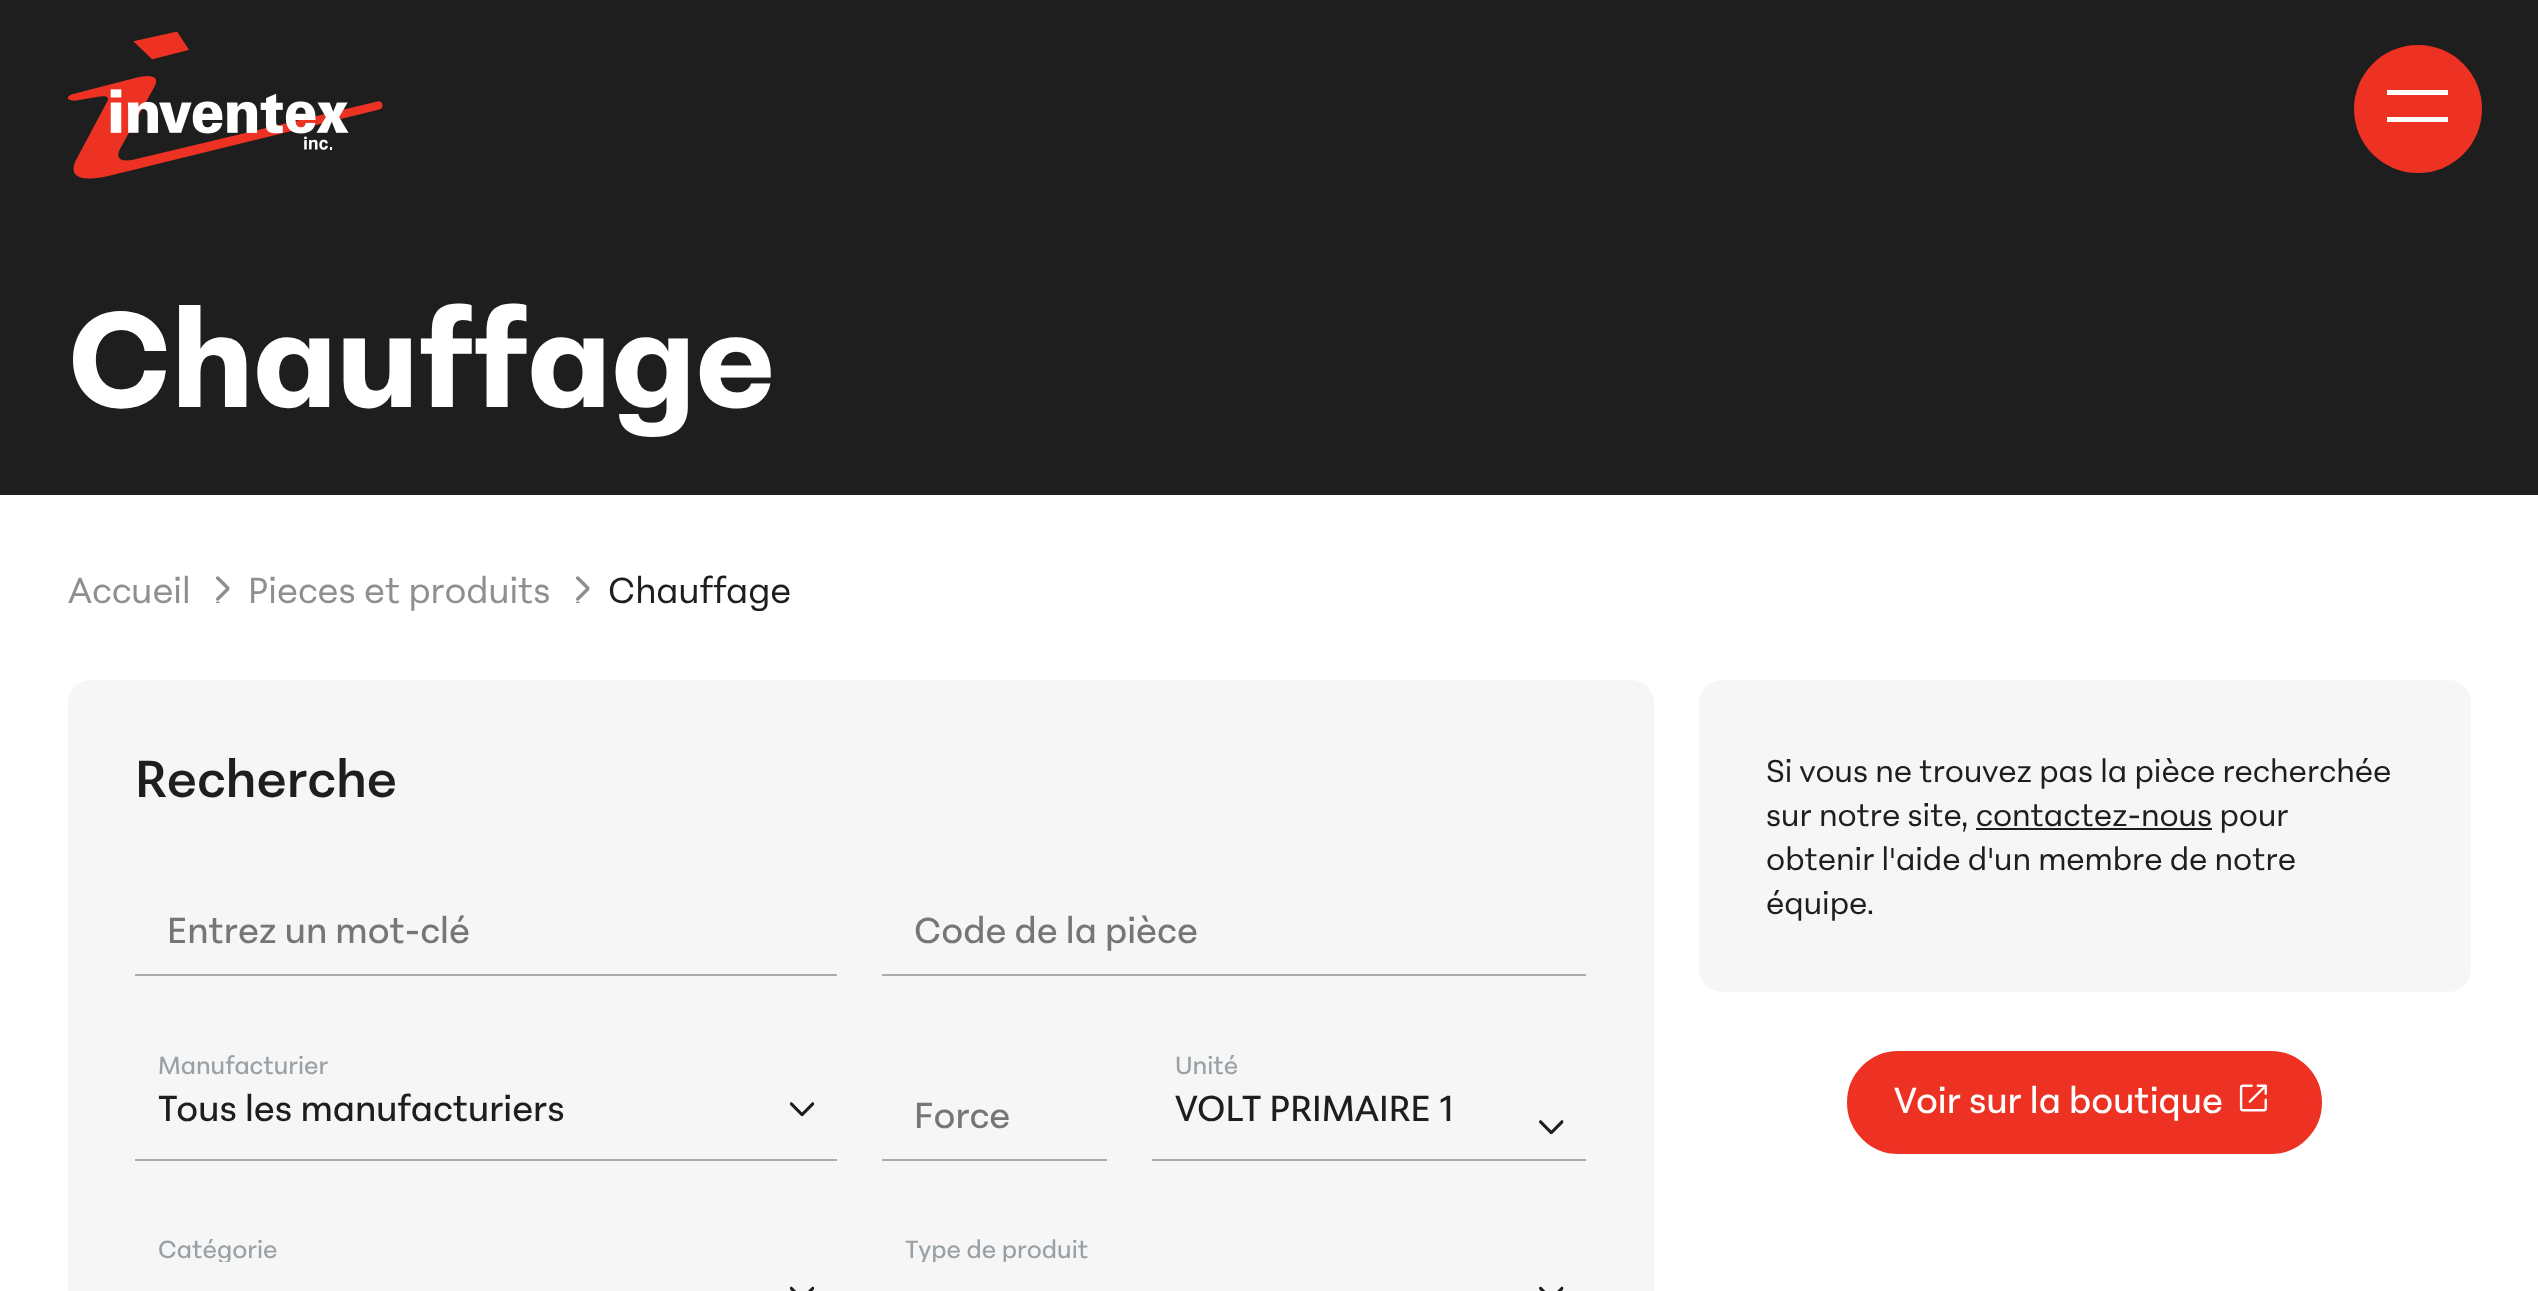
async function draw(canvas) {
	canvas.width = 2538;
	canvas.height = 1291;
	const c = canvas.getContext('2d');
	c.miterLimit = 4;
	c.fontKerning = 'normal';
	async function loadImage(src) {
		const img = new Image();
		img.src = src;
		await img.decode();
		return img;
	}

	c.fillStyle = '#fff';
	c.fillRect(0, 0, 2538, 1291);
	c.fillStyle = '#1e1e1e';
	c.fillRect(0, 0, 2538, 495);
	c.drawImage(await loadImage('img1.png'), 68, 32, 315, 147);
	c.fillStyle = '#ed3224';
	c.beginPath();
	c.arc(2418, 109, 64, 0, 2 * Math.PI);
	c.fill();
	c.fillStyle = '#fff';
	c.fillRect(2387, 90, 61, 5);
	c.fillRect(2387, 117, 61, 5);
	c.font = '800 135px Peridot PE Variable';
	c.fillText('Chauffage', 68, 407);
	c.font = '36px Peridot PE Variable';
	c.fillStyle = '#8f8f8f';
	c.fillText('Accueil', 68, 603);
	c.drawImage(await loadImage('img2.png'), 216, 576, 14, 27);
	c.fillText('Pieces et produits', 248, 603);
	c.drawImage(await loadImage('img2.png'), 576, 576, 14, 27);
	c.fillStyle = '#1e1e1e';
	c.fillText('Chauffage', 608, 603);
	c.fillStyle = '#f6f6f6';
	c.beginPath();
	c.roundRect(68, 680, 1586, 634, 23);
	c.fill();
	c.font = '600 51.75px Peridot PE Variable';
	c.fillStyle = '#1e1e1e';
	c.fillText('Recherche', 135, 797);
	c.font = '500 36px Peridot PE Variable';
	c.fillStyle = '#767676';
	c.fillText('Entrez un mot-clé', 167, 943);
	c.fillStyle = '#acacac';
	c.fillRect(135, 974, 702, 2);
	c.fillStyle = '#767676';
	c.fillText('Code de la pièce', 914, 943);
	c.fillStyle = '#acacac';
	c.fillRect(882, 974, 704, 2);
	c.font = '500 24.75px Peridot PE Variable';
	c.fillStyle = '#99a1a6';
	c.fillText('Manufacturier', 158, 1074);
	c.fillStyle = '#acacac';
	c.fillRect(135, 1159, 702, 2);
	c.font = '500 36px Peridot PE Variable';
	c.fillStyle = '#1e1e1e';
	c.fillText('Tous les manufacturiers', 158, 1121);
	c.drawImage(await loadImage('img3.png'), 790, 1102, 25, 15);
	c.fillStyle = '#767676';
	c.fillText('Force', 914, 1128);
	c.font = '500 24.75px Peridot PE Variable';
	c.fillStyle = '#99a1a6';
	c.fillText('Unité', 1175, 1074);
	c.fillStyle = '#acacac';
	c.fillRect(1152, 1159, 434, 2);
	c.font = '500 36px Peridot PE Variable';
	c.fillStyle = '#1e1e1e';
	c.fillText('VOLT PRIMAIRE 1', 1175, 1121);
	c.drawImage(await loadImage('img4.png'), 1539, 1120, 25, 15);
	c.fillStyle = '#acacac';
	c.fillRect(882, 1159, 225, 2);
	c.save();
	c.beginPath();
	c.rect(135, 1233, 702, 29);
	c.clip();
	c.font = '500 24.75px Peridot PE Variable';
	c.fillStyle = '#99a1a6';
	c.fillText('Catégorie', 158, 1258);
	c.restore();
	c.drawImage(await loadImage('img5.png'), 790, 1286, 25, 5);
	c.save();
	c.beginPath();
	c.rect(882, 1233, 704, 29);
	c.clip();
	c.font = '500 24.75px Peridot PE Variable';
	c.fillStyle = '#99a1a6';
	c.fillText('Type de produit', 905, 1258);
	c.restore();
	c.drawImage(await loadImage('img6.png'), 1539, 1286, 25, 5);
	c.fillStyle = '#f6f6f6';
	c.beginPath();
	c.roundRect(1699, 680, 772, 312, 23);
	c.fill();
	c.font = '31.5px Peridot PE Variable';
	c.fillStyle = '#1e1e1e';
	c.fillText('Si vous ne trouvez pas la pièce recherchée', 1766, 782);
	c.fillText('sur notre site, contactez-nous pour', 1766, 826);
	c.fillRect(1976, 828, 236, 2);
	c.fillText('obtenir l\'aide d\'un membre de notre', 1766, 870);
	c.fillText('équipe.', 1766, 914);
	c.fillStyle = '#ed3224';
	c.beginPath();
	c.roundRect(1848, 1052, 473, 101, 50.5);
	c.fill();
	c.strokeStyle = '#ed3224';
	c.lineWidth = 2;
	c.stroke();
	c.font = '500 36px Peridot PE Variable';
	c.fillStyle = '#fff';
	c.fillText('Voir sur la boutique', 1894, 1113);
	c.drawImage(await loadImage('img7.png'), 2239, 1084, 28, 28);
}

draw(document.querySelector('canvas'));
